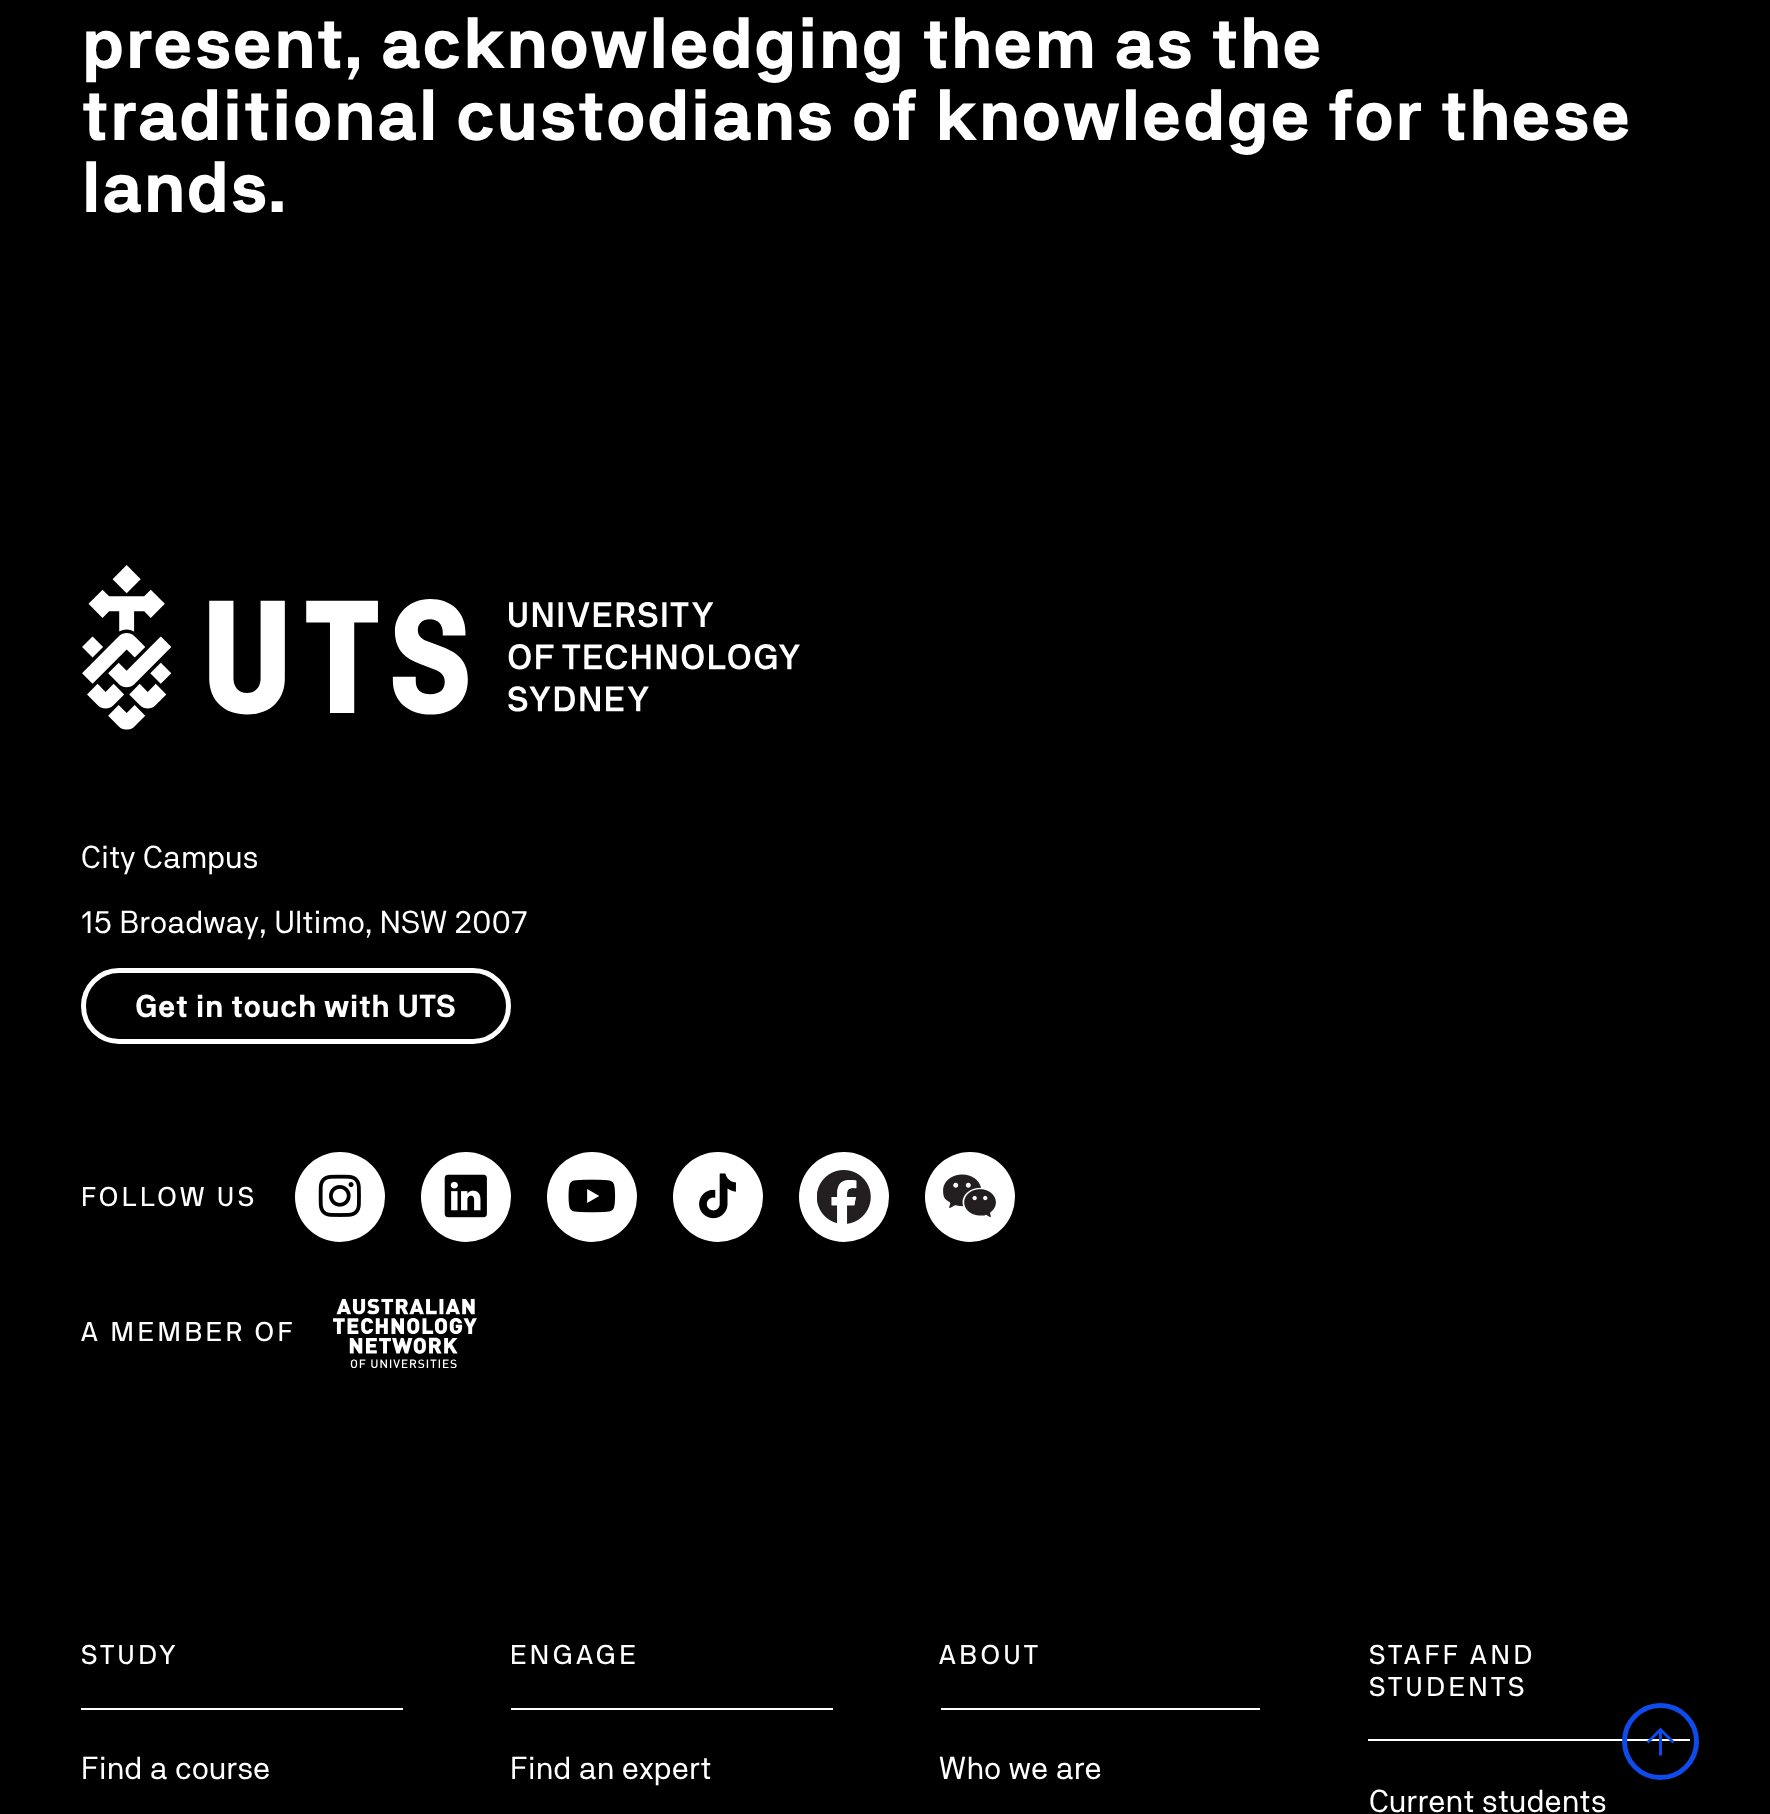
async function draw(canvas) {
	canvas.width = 1770;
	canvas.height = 1814;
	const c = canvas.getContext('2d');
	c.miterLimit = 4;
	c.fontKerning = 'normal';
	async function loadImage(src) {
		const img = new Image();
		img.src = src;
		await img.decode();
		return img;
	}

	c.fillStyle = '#000';
	c.fillRect(0, 0, 1770, 1814);
	c.font = 'bold 72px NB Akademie';
	c.fillStyle = '#fff';
	for (const [text, x, y] of [
		['present, acknowledging them as the', 81, 68],
		['traditional custodians of knowledge for these', 81, 140],
		['lands.', 81, 212],
	]) {
		c.fillText(text, x, y);
	}
	c.drawImage(await loadImage('img1.png'), 82, 565, 718, 165);
	c.font = '31.5px NB Akademie';
	c.fillText('City Campus', 81, 868);
	c.fillText('15 Broadway, Ultimo, NSW 2007', 81, 933);
	c.beginPath();
	c.roundRect(83.5, 970.5, 425, 71, 35.5);
	c.strokeStyle = '#fff';
	c.lineWidth = 5;
	c.stroke();
	c.font = 'bold 31.5px NB Akademie';
	c.fillText('Get in touch with UTS', 135, 1017);
	c.letterSpacing = '3.75px';
	c.font = '27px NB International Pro';
	c.fillText('FOLLOW US', 81, 1206);
	c.beginPath();
	c.arc(340, 1197, 45, 0, 2 * Math.PI);
	c.fill();
	c.drawImage(await loadImage('img2.png'), 318, 1174, 43, 43);
	c.beginPath();
	c.arc(466, 1197, 45, 0, 2 * Math.PI);
	c.fill();
	c.drawImage(await loadImage('img3.png'), 444, 1174, 43, 44);
	c.beginPath();
	c.arc(592, 1197, 45, 0, 2 * Math.PI);
	c.fill();
	c.drawImage(await loadImage('img4.png'), 568, 1179, 48, 34);
	c.beginPath();
	c.arc(718, 1197, 45, 0, 2 * Math.PI);
	c.fill();
	c.drawImage(await loadImage('img5.png'), 699, 1173, 37, 46);
	c.beginPath();
	c.arc(844, 1197, 45, 0, 2 * Math.PI);
	c.fill();
	c.drawImage(await loadImage('img6.png'), 817, 1170, 54, 54);
	c.beginPath();
	c.arc(970, 1197, 45, 0, 2 * Math.PI);
	c.fill();
	c.drawImage(await loadImage('img7.png'), 943, 1174, 53, 44);
	c.fillText('A MEMBER OF', 81, 1341);
	c.drawImage(await loadImage('img8.png'), 333, 1298, 144, 70);
	c.fillRect(81, 1708, 322, 2);
	c.fillText('STUDY', 81, 1664);
	c.letterSpacing = '0px';
	c.font = '31.5px NB Akademie';
	c.fillText('Find a course', 81, 1779);
	c.fillRect(511, 1708, 322, 2);
	c.letterSpacing = '3.75px';
	c.font = '27px NB International Pro';
	c.fillText('ENGAGE', 510, 1664);
	c.letterSpacing = '0px';
	c.font = '31.5px NB Akademie';
	c.fillText('Find an expert', 510, 1779);
	c.fillRect(941, 1708, 319, 2);
	c.letterSpacing = '3.75px';
	c.font = '27px NB International Pro';
	c.fillText('ABOUT', 939, 1664);
	c.letterSpacing = '0px';
	c.font = '31.5px NB Akademie';
	c.fillText('Who we are', 939, 1779);
	c.fillRect(1368, 1739, 322, 2);
	c.letterSpacing = '3.75px';
	c.font = '27px NB International Pro';
	c.fillText('STAFF AND', 1369, 1664);
	c.fillText('STUDENTS', 1369, 1696);
	c.letterSpacing = '0px';
	c.font = '31.5px NB Akademie';
	c.fillText('Current students', 1369, 1812);
	c.fillStyle = '#0f4beb';
	c.beginPath();
	c.moveTo(1659, 1755.5);
	c.lineTo(1659, 1733);
	c.lineTo(1648.5, 1743.5);
	c.lineTo(1646.5, 1741.5);
	c.lineTo(1660.5, 1727.5);
	c.lineTo(1674.5, 1741.5);
	c.lineTo(1672.5, 1743.5);
	c.lineTo(1662, 1733);
	c.lineTo(1662, 1755.5);
	c.closePath();
	c.fill();
	c.beginPath();
	c.arc(1660.5, 1741.5, 36, 0, 2 * Math.PI);
	c.strokeStyle = '#0f4beb';
	c.stroke();
}

draw(document.querySelector('canvas'));
